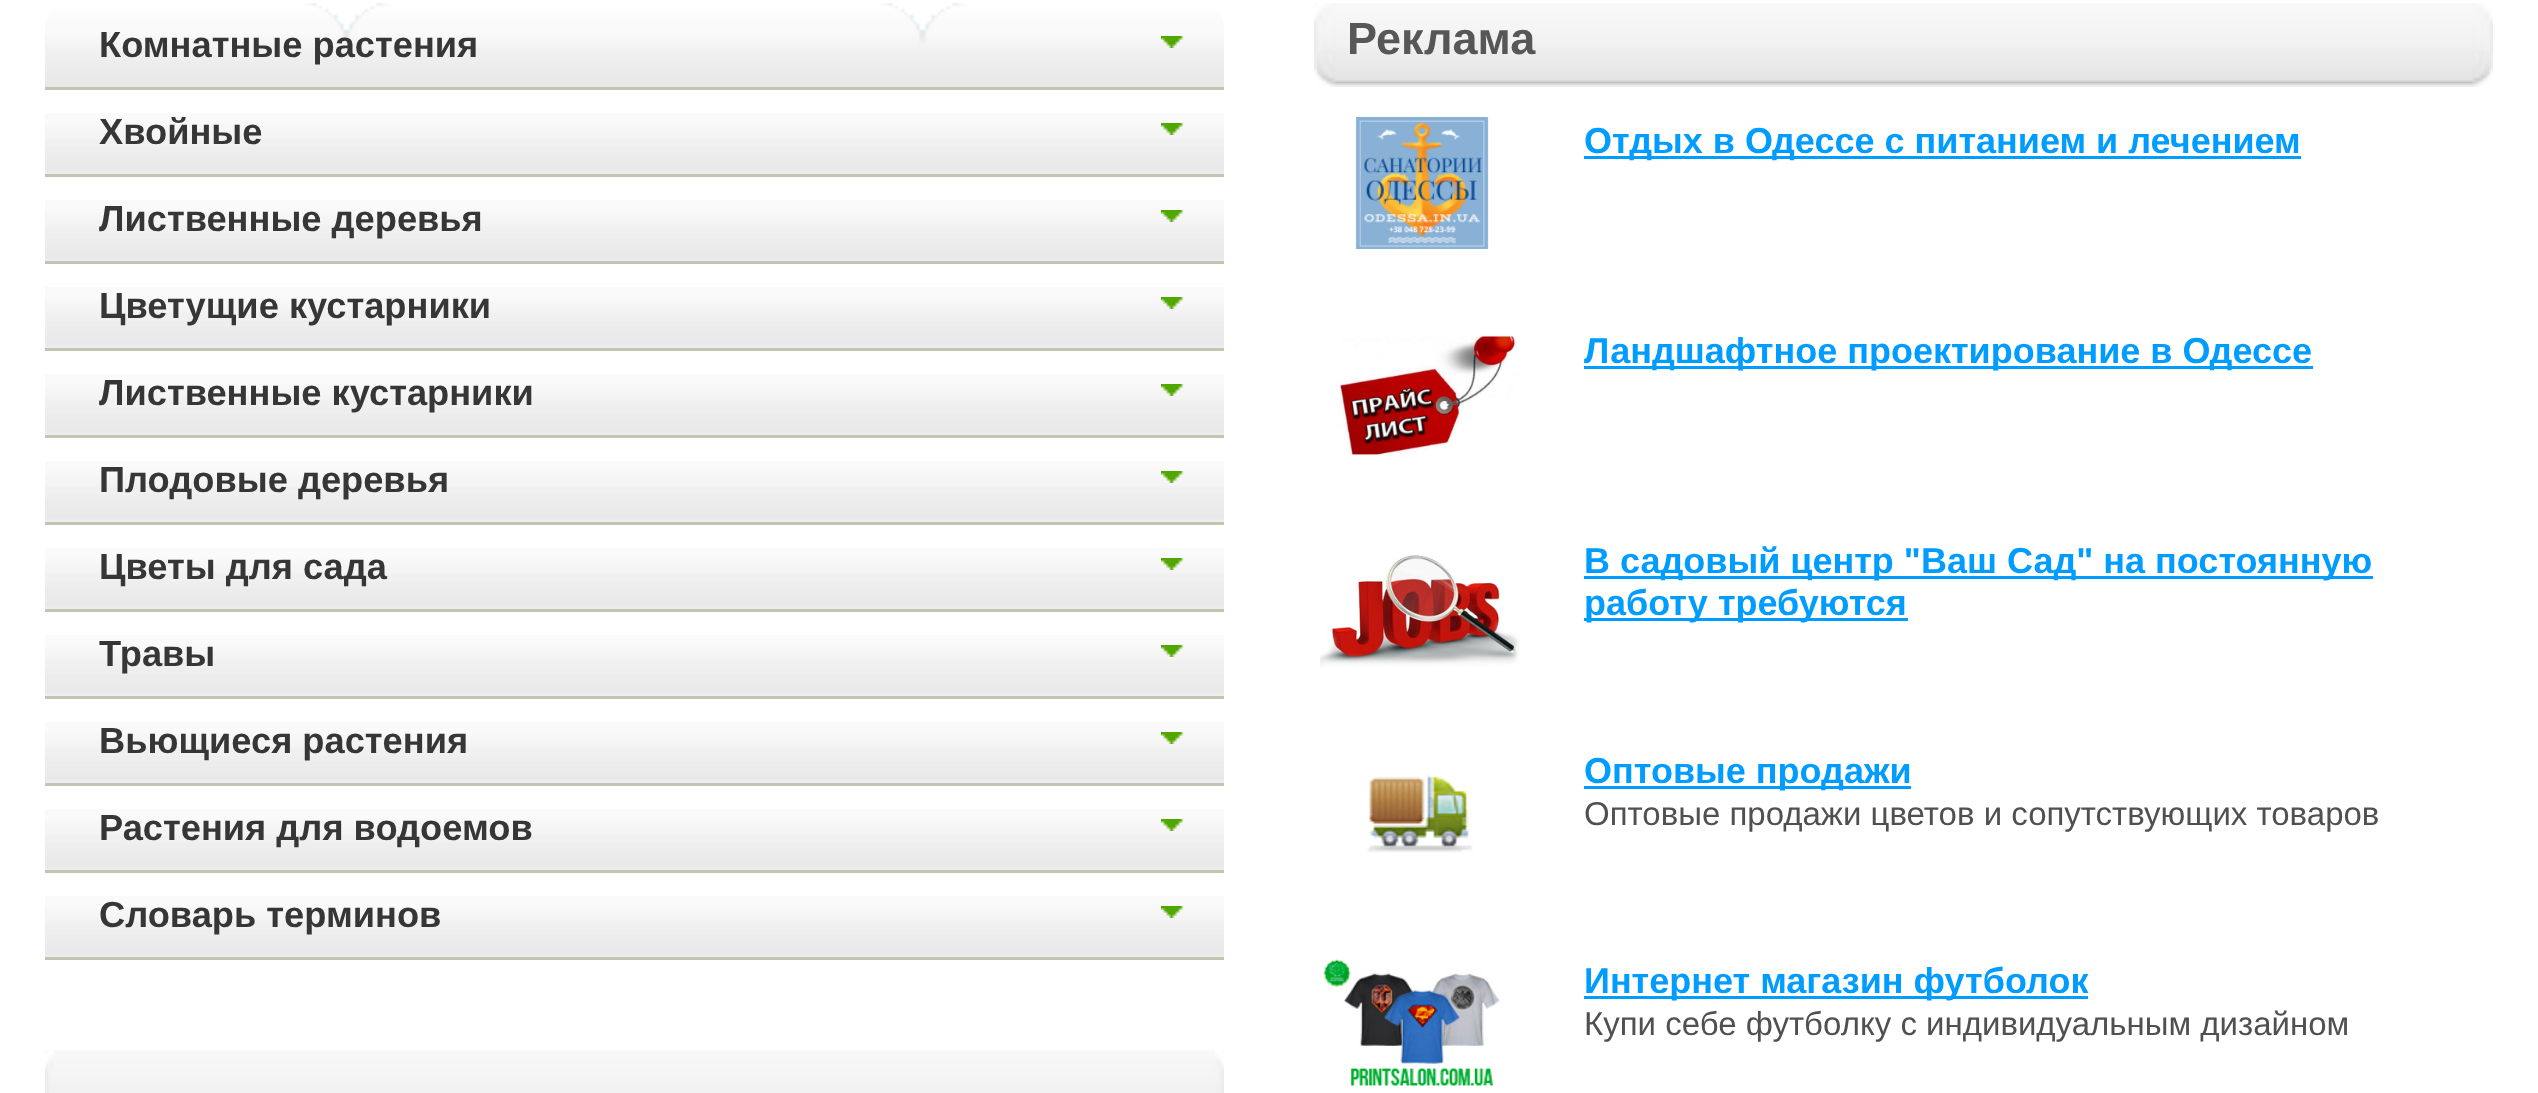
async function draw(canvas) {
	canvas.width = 2538;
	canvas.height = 1093;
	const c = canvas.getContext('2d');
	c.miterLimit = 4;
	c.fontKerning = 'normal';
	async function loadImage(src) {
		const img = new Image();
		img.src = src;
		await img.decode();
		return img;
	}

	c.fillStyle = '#fff';
	c.fillRect(0, 0, 2538, 1093);
	c.drawImage(await loadImage('img1.png'), 45, 3, 1179, 84);
	c.fillStyle = '#bfc6b2';
	c.fillRect(45, 87, 1179, 3);
	c.drawImage(await loadImage('img2.png'), 1161, 36, 23, 12);
	c.font = 'bold 36.25px Liberation Sans';
	c.fillStyle = '#363636';
	c.fillText('Комнатные растения', 99, 57);
	c.drawImage(await loadImage('img3.png'), 45, 113, 1179, 61);
	c.fillStyle = '#bfc6b2';
	c.fillRect(45, 174, 1179, 3);
	c.drawImage(await loadImage('img4.png'), 1161, 123, 23, 12);
	c.fillStyle = '#363636';
	c.fillText('Хвойные', 99, 144);
	c.drawImage(await loadImage('img3.png'), 45, 200, 1179, 61);
	c.fillStyle = '#bfc6b2';
	c.fillRect(45, 261, 1179, 3);
	c.drawImage(await loadImage('img4.png'), 1161, 210, 23, 12);
	c.fillStyle = '#363636';
	c.fillText('Лиственные деревья', 99, 231);
	c.drawImage(await loadImage('img3.png'), 45, 287, 1179, 61);
	c.fillStyle = '#bfc6b2';
	c.fillRect(45, 348, 1179, 3);
	c.drawImage(await loadImage('img4.png'), 1161, 297, 23, 12);
	c.fillStyle = '#363636';
	c.fillText('Цветущие кустарники', 99, 318);
	c.drawImage(await loadImage('img3.png'), 45, 374, 1179, 61);
	c.fillStyle = '#bfc6b2';
	c.fillRect(45, 435, 1179, 3);
	c.drawImage(await loadImage('img4.png'), 1161, 384, 23, 12);
	c.fillStyle = '#363636';
	c.fillText('Лиственные кустарники', 99, 405);
	c.drawImage(await loadImage('img3.png'), 45, 461, 1179, 61);
	c.fillStyle = '#bfc6b2';
	c.fillRect(45, 522, 1179, 3);
	c.drawImage(await loadImage('img4.png'), 1161, 471, 23, 12);
	c.fillStyle = '#363636';
	c.fillText('Плодовые деревья', 99, 492);
	c.drawImage(await loadImage('img3.png'), 45, 548, 1179, 61);
	c.fillStyle = '#bfc6b2';
	c.fillRect(45, 609, 1179, 3);
	c.drawImage(await loadImage('img4.png'), 1161, 558, 23, 12);
	c.fillStyle = '#363636';
	c.fillText('Цветы для сада', 99, 579);
	c.drawImage(await loadImage('img3.png'), 45, 635, 1179, 61);
	c.fillStyle = '#bfc6b2';
	c.fillRect(45, 696, 1179, 3);
	c.drawImage(await loadImage('img4.png'), 1161, 645, 23, 12);
	c.fillStyle = '#363636';
	c.fillText('Травы', 99, 666);
	c.drawImage(await loadImage('img3.png'), 45, 722, 1179, 61);
	c.fillStyle = '#bfc6b2';
	c.fillRect(45, 783, 1179, 3);
	c.drawImage(await loadImage('img4.png'), 1161, 732, 23, 12);
	c.fillStyle = '#363636';
	c.fillText('Вьющиеся растения', 99, 753);
	c.drawImage(await loadImage('img3.png'), 45, 809, 1179, 61);
	c.fillStyle = '#bfc6b2';
	c.fillRect(45, 870, 1179, 3);
	c.drawImage(await loadImage('img4.png'), 1161, 819, 23, 12);
	c.fillStyle = '#363636';
	c.fillText('Растения для водоемов', 99, 840);
	c.drawImage(await loadImage('img3.png'), 45, 896, 1179, 61);
	c.fillStyle = '#bfc6b2';
	c.fillRect(45, 957, 1179, 3);
	c.drawImage(await loadImage('img4.png'), 1161, 906, 23, 12);
	c.fillStyle = '#363636';
	c.fillText('Словарь терминов', 99, 927);
	c.drawImage(await loadImage('img5.png'), 54, 1050, 1161, 43);
	c.drawImage(await loadImage('img6.png'), 45, 1050, 9, 43);
	c.drawImage(await loadImage('img7.png'), 1215, 1050, 9, 43);
	c.drawImage(await loadImage('img8.png'), 1336, 3, 1136, 84);
	c.drawImage(await loadImage('img9.png'), 1314, 3, 22, 84);
	c.drawImage(await loadImage('img10.png'), 2472, 3, 21, 84);
	c.font = 'bold 45px Liberation Sans';
	c.fillStyle = '#575757';
	c.fillText('Реклама', 1347, 54);
	c.drawImage(await loadImage('img11.png'), 1355, 117, 134, 132);
	c.fillStyle = '#009cff';
	c.fillRect(1584, 156, 717, 3);
	c.font = 'bold 36px Liberation Sans';
	c.fillText('Отдых в Одессе с питанием и лечением', 1584, 153);
	c.drawImage(await loadImage('img12.png'), 1339, 335, 178, 121);
	c.fillRect(1584, 366, 729, 3);
	c.fillText('Ландшафтное проектирование в Одессе', 1584, 363);
	c.drawImage(await loadImage('img13.png'), 1320, 555, 200, 112);
	c.fillRect(1584, 576, 789, 3);
	c.fillText('В садовый центр "Ваш Сад" на постоянную', 1584, 573);
	c.fillRect(1584, 618, 324, 3);
	c.fillText('работу требуются', 1584, 615);
	c.drawImage(await loadImage('img14.png'), 1367, 775, 106, 78);
	c.fillRect(1584, 786, 327, 3);
	c.fillText('Оптовые продажи', 1584, 783);
	c.font = '33px Liberation Sans';
	c.fillStyle = '#505050';
	c.fillText('Оптовые продажи цветов и сопутствующих товаров', 1584, 825);
	c.drawImage(await loadImage('img15.png'), 1323, 957, 177, 129);
	c.fillStyle = '#009cff';
	c.fillRect(1584, 996, 504, 3);
	c.font = 'bold 36px Liberation Sans';
	c.fillText('Интернет магазин футболок', 1584, 993);
	c.font = '33px Liberation Sans';
	c.fillStyle = '#505050';
	c.fillText('Купи себе футболку с индивидуальным дизайном', 1584, 1035);
}

draw(document.querySelector('canvas'));
